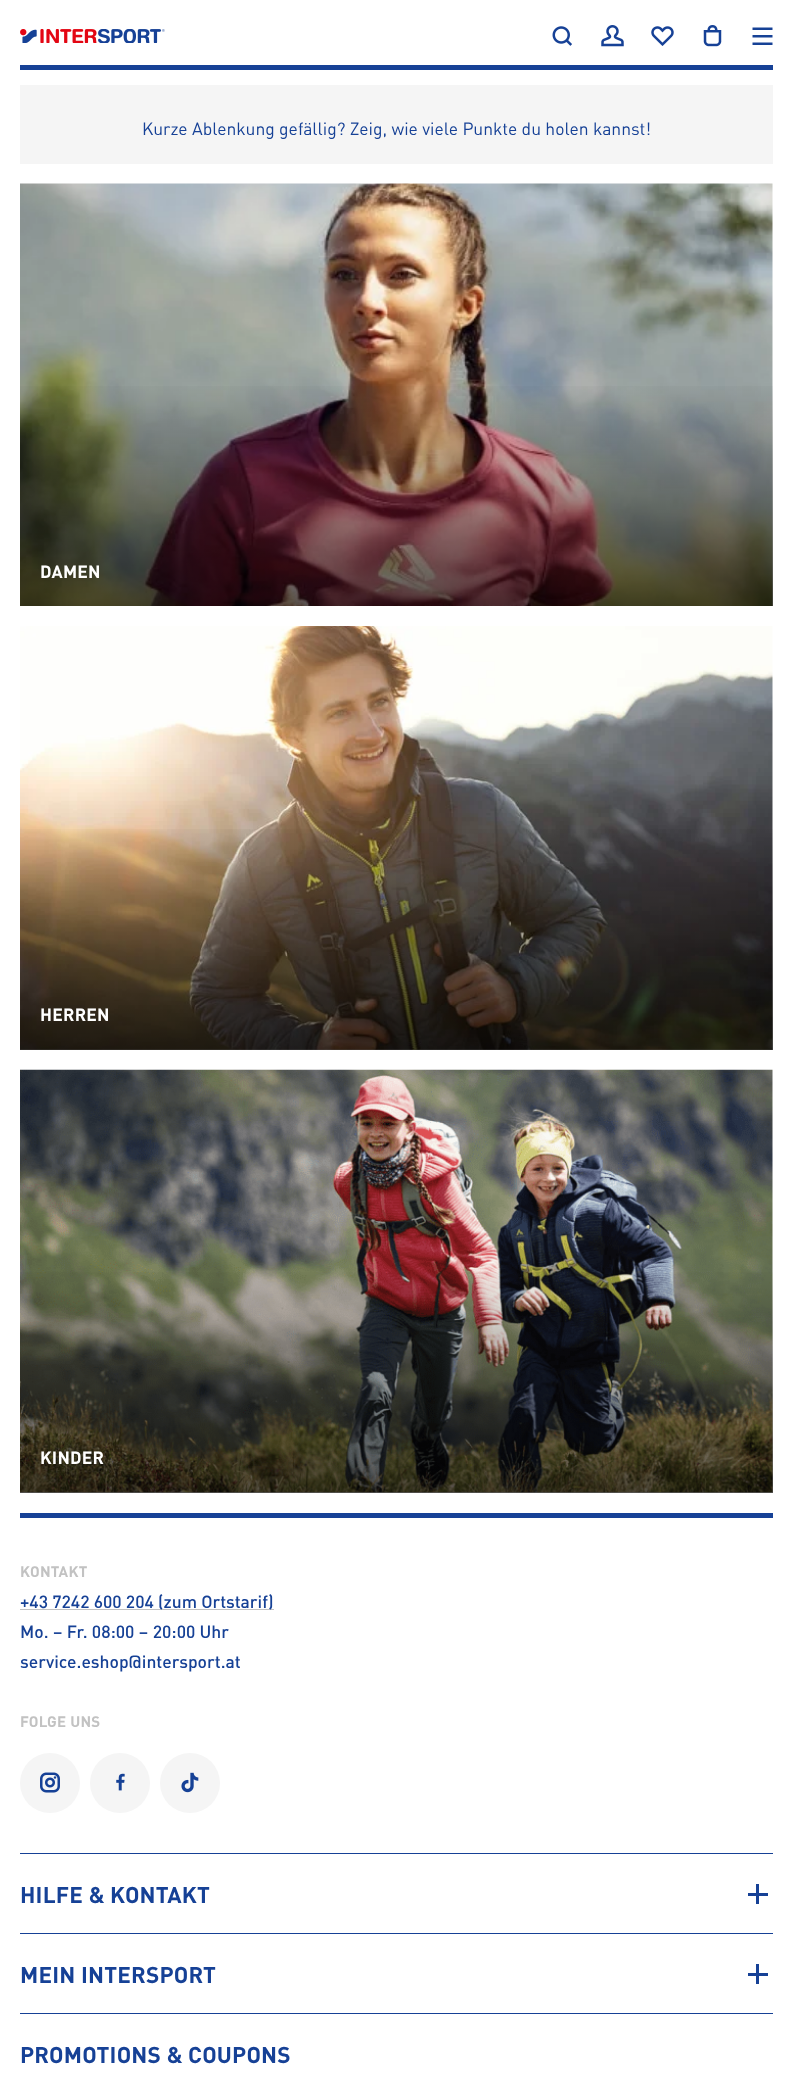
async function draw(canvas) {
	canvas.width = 792;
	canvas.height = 2080;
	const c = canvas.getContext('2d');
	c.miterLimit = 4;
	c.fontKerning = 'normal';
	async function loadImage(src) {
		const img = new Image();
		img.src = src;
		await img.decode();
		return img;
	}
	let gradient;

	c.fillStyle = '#fff';
	c.fillRect(0, 0, 792, 2080);
	c.fillStyle = '#164196';
	c.fillRect(20, 65, 753, 5);
	c.drawImage(await loadImage('img1.png'), 20, 29, 145, 14);
	c.drawImage(await loadImage('img2.png'), 552, 26, 20, 20);
	c.drawImage(await loadImage('img3.png'), 601, 25, 23, 22);
	c.drawImage(await loadImage('img4.png'), 651, 26, 23, 20);
	c.drawImage(await loadImage('img5.png'), 703, 25, 19, 22);
	c.drawImage(await loadImage('img6.png'), 752, 27, 21, 18);
	c.fillStyle = '#f5f5f5';
	c.fillRect(20, 85, 753, 79);
	c.font = '17.5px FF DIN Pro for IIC';
	c.fillStyle = '#164196';
	c.fillText('Kurze Ablenkung gefällig? Zeig, wie viele Punkte du holen kannst!', 142, 135);
	c.drawImage(await loadImage('img7.png'), 20, 183, 753, 423);
	gradient = c.createLinearGradient(396, 184, 396, 606);
	gradient.addColorStop(0.46, '#00000000');
	gradient.addColorStop(1, '#000000a6');
	c.fillStyle = gradient;
	c.fillRect(20, 386, 753, 220);
	c.letterSpacing = '0.2px';
	c.font = 'bold 17.5px FF DIN Pro for IIC';
	c.fillStyle = '#fff';
	c.fillText('DAMEN', 40, 578);
	c.drawImage(await loadImage('img8.png'), 20, 626, 753, 424);
	gradient = c.createLinearGradient(396, 626, 396, 1050);
	gradient.addColorStop(0.46, '#00000000');
	gradient.addColorStop(1, '#000000a6');
	c.fillStyle = gradient;
	c.fillRect(20, 829, 753, 221);
	c.fillStyle = '#fff';
	c.fillText('HERREN', 40, 1021);
	c.drawImage(await loadImage('img9.png'), 20, 1069, 753, 424);
	gradient = c.createLinearGradient(396, 1070, 396, 1493);
	gradient.addColorStop(0.46, '#00000000');
	gradient.addColorStop(1, '#000000a6');
	c.fillStyle = gradient;
	c.fillRect(20, 1272, 753, 221);
	c.fillStyle = '#fff';
	c.fillText('KINDER', 40, 1464);
	c.fillStyle = '#164196';
	c.fillRect(20, 1513, 753, 5);
	c.letterSpacing = '0.25px';
	c.font = 'bold 15px FF DIN Pro for IIC';
	c.fillStyle = '#c2c2c2';
	c.fillText('KONTAKT', 20, 1577);
	c.fillRect(20, 1609, 254, 1);
	c.letterSpacing = '0px';
	c.font = '500 17.5px FF DIN Pro for IIC';
	c.fillStyle = '#164196';
	for (const [text, x, y] of [
		['+43 7242 600 204 (zum Ortstarif)', 20, 1608],
		['Mo. – Fr. 08:00 – 20:00 Uhr', 20, 1638],
		['service.eshop@intersport.at', 20, 1668],
	]) {
		c.fillText(text, x, y);
	}
	c.letterSpacing = '0.25px';
	c.font = 'bold 15px FF DIN Pro for IIC';
	c.fillStyle = '#c2c2c2';
	c.fillText('FOLGE UNS', 20, 1727);
	c.fillStyle = '#f5f5f5';
	c.beginPath();
	c.arc(50, 1783, 30, 0, 2 * Math.PI);
	c.fill();
	c.drawImage(await loadImage('img10.png'), 40, 1772, 20, 21);
	c.beginPath();
	c.arc(120, 1783, 30, 0, 2 * Math.PI);
	c.fill();
	c.drawImage(await loadImage('img11.png'), 116, 1773, 9, 18);
	c.beginPath();
	c.arc(190, 1783, 30, 0, 2 * Math.PI);
	c.fill();
	c.drawImage(await loadImage('img12.png'), 181, 1772, 18, 21);
	c.fillStyle = '#164196';
	c.fillRect(20, 1853, 753, 1);
	c.letterSpacing = '0.2px';
	c.font = 'bold 22.5px FF DIN Pro for IIC';
	c.fillText('HILFE & KONTAKT', 20, 1903);
	for (const [x, y, w, h, color] of [
		[748, 1893, 20, 3, '#164196'],
		[756, 1884, 3, 20, '#164196'],
		[20, 1933, 753, 1, '#164196'],
	]) {
		c.fillStyle = color;
		c.fillRect(x, y, w, h);
	}
	c.fillText('MEIN INTERSPORT', 20, 1983);
	for (const [x, y, w, h, color] of [
		[748, 1973, 20, 3, '#164196'],
		[756, 1964, 3, 20, '#164196'],
		[20, 2013, 753, 1, '#164196'],
	]) {
		c.fillStyle = color;
		c.fillRect(x, y, w, h);
	}
	c.fillText('PROMOTIONS & COUPONS', 20, 2063);
}

draw(document.querySelector('canvas'));
